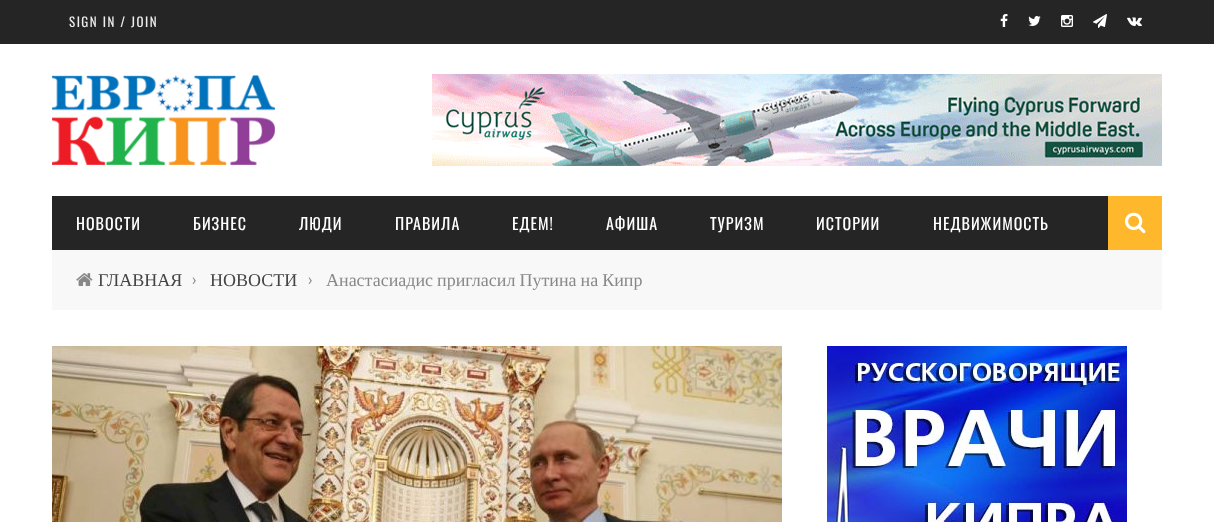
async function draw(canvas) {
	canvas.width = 1214;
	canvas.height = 522;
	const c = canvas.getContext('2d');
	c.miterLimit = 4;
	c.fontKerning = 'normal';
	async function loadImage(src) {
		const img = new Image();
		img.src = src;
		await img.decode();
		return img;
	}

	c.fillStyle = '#fff';
	c.fillRect(0, 0, 1214, 522);
	c.fillStyle = '#252525';
	c.fillRect(0, 0, 1214, 44);
	c.letterSpacing = '1.5px';
	c.font = '13px Oswald';
	c.fillStyle = '#eee';
	c.fillText('SIGN IN / JOIN', 69, 27);
	c.drawImage(await loadImage('img1.png'), 1000, 14, 8, 13);
	c.drawImage(await loadImage('img2.png'), 1028, 16, 13, 10);
	c.drawImage(await loadImage('img3.png'), 1061, 15, 12, 12);
	c.drawImage(await loadImage('img4.png'), 1093, 14, 14, 14);
	c.drawImage(await loadImage('img5.png'), 1127, 17, 15, 9);
	c.drawImage(await loadImage('img6.png'), 52, 75, 223, 90);
	c.drawImage(await loadImage('img7.png'), 432, 74, 730, 92);
	c.fillStyle = '#252525';
	c.fillRect(52, 196, 1056, 54);
	c.letterSpacing = '1px';
	c.font = '16px Oswald';
	c.fillStyle = '#fff';
	for (const [text, x, y] of [
		['НОВОСТИ', 76, 230],
		['БИЗНЕС', 193, 230],
		['ЛЮДИ', 299, 230],
		['ПРАВИЛА', 395, 230],
		['ЕДЕМ!', 512, 230],
		['АФИША', 606, 230],
		['ТУРИЗМ', 710, 230],
		['ИСТОРИИ', 816, 230],
		['НЕДВИЖИМОСТЬ', 933, 230],
	]) {
		c.fillText(text, x, y);
	}
	c.fillStyle = '#ffb82b';
	c.fillRect(1108, 196, 54, 54);
	c.drawImage(await loadImage('img8.png'), 1125, 212, 21, 22);
	c.fillStyle = '#f8f8f8';
	c.fillRect(52, 250, 1110, 60);
	c.drawImage(await loadImage('img9.png'), 76, 273, 17, 13);
	c.letterSpacing = '0px';
	c.font = '18px Liberation Serif';
	c.fillStyle = '#444';
	c.fillText('ГЛАВНАЯ', 98, 286);
	c.font = '16px Archivo Narrow';
	c.fillStyle = '#8d97a1';
	c.fillText('›', 192, 286);
	c.font = '18px Liberation Serif';
	c.fillStyle = '#444';
	c.fillText('НОВОСТИ', 210, 286);
	c.font = '16px Archivo Narrow';
	c.fillStyle = '#8d97a1';
	c.fillText('›', 308, 286);
	c.wordSpacing = '-0.5px';
	c.font = '18px Liberation Serif';
	c.fillStyle = '#888';
	c.fillText('Анастасиадис пригласил Путина на Кипр', 326, 286);
	c.drawImage(await loadImage('img10.png'), 52, 346, 730, 176);
	c.drawImage(await loadImage('img11.png'), 827, 346, 300, 176);
}

draw(document.querySelector('canvas'));
